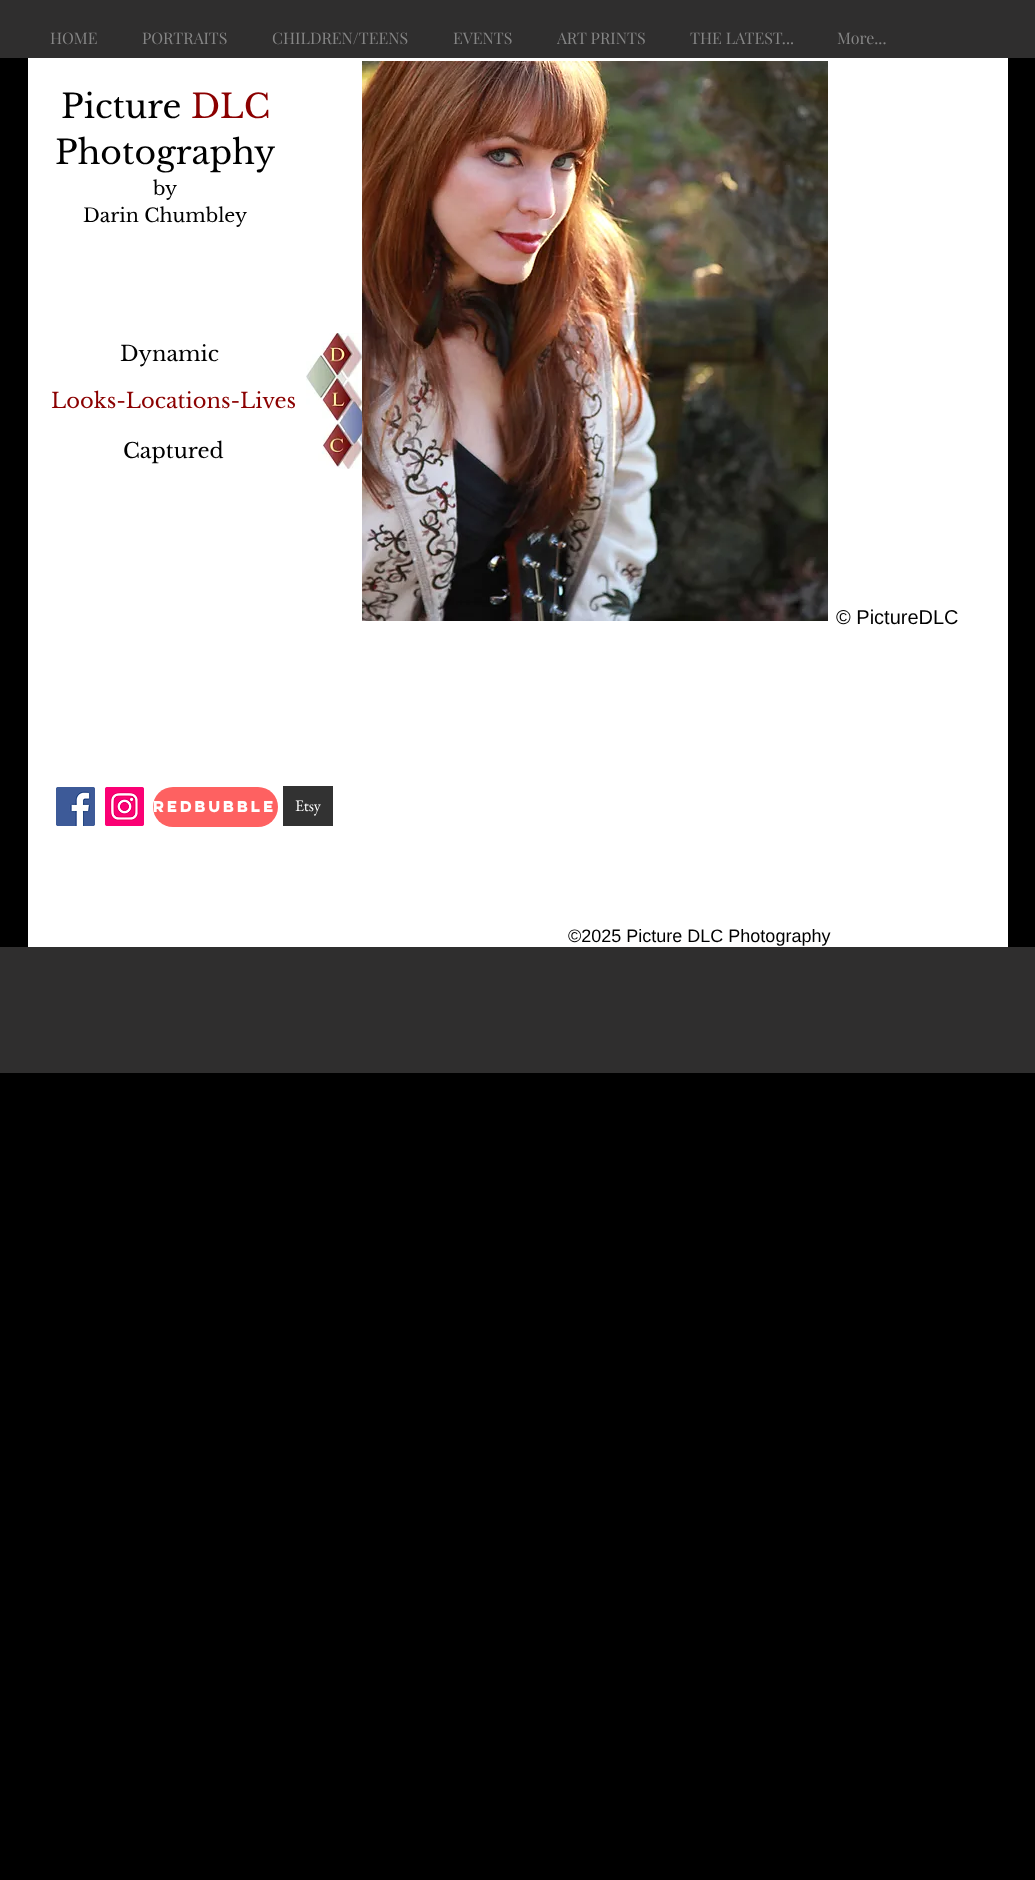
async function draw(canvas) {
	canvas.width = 1035;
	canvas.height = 1880;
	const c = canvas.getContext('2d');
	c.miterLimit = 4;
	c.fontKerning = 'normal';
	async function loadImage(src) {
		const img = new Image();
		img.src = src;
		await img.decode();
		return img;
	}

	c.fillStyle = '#000';
	c.fillRect(0, 0, 1035, 1880);
	c.fillStyle = '#2f2e2e';
	c.fillRect(0, 0, 1035, 58);
	c.font = '16px Playfair Display';
	c.fillStyle = '#858585';
	for (const [text, x, y] of [
		['HOME', 50, 44],
		['PORTRAITS', 142, 44],
		['CHILDREN/TEENS', 272, 44],
		['EVENTS', 453, 44],
		['ART PRINTS', 557, 44],
		['THE LATEST...', 690, 44],
		['More...', 837, 44],
	]) {
		c.fillText(text, x, y);
	}
	c.fillStyle = '#fff';
	c.fillRect(28, 58, 980, 889);
	c.font = '33px Libre Baskerville';
	c.fillStyle = '#000';
	c.fillText('Picture', 61, 118);
	c.fillStyle = '#8b0000';
	c.fillText('DLC', 191, 118);
	c.fillStyle = '#000';
	c.fillText('Photography', 55, 164);
	c.font = '19px Libre Baskerville';
	c.fillText('by', 153, 195);
	c.fillText('Darin Chumbley', 83, 222);
	c.drawImage(await loadImage('img1.png'), 56, 787, 39, 39);
	c.drawImage(await loadImage('img2.png'), 105, 787, 39, 39);
	c.fillStyle = '#fe6161';
	c.beginPath();
	c.roundRect(153, 787, 125, 40, 20);
	c.fill();
	c.font = 'bold 14px "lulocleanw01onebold"';
	c.fillStyle = '#fff';
	c.fillText('RedBubble', 153, 812);
	c.fillStyle = '#323232';
	c.fillRect(283, 786, 50, 40);
	c.font = '16px EB Garamond';
	c.fillStyle = '#fff';
	c.fillText('Etsy', 295, 811);
	c.font = '18px Liberation Sans';
	c.fillStyle = '#000';
	c.fillText('©2025 Picture DLC Photography', 568, 942);
	c.font = '21px Libre Baskerville';
	c.fillText('Dynamic', 120, 361);
	c.fillStyle = '#8b0000';
	c.fillText('Looks-Locations-Lives', 51, 408);
	c.fillStyle = '#000';
	c.fillText('Captured', 123, 458);
	c.drawImage(await loadImage('img3.png'), 306, 333, 56, 136);
	c.drawImage(await loadImage('img4.png'), 362, 61, 466, 560);
	c.font = '20px Liberation Sans';
	c.fillText('© PictureDLC', 836, 624);
	c.fillStyle = '#2f2e2e';
	c.fillRect(0, 947, 1035, 126);
}

draw(document.querySelector('canvas'));
